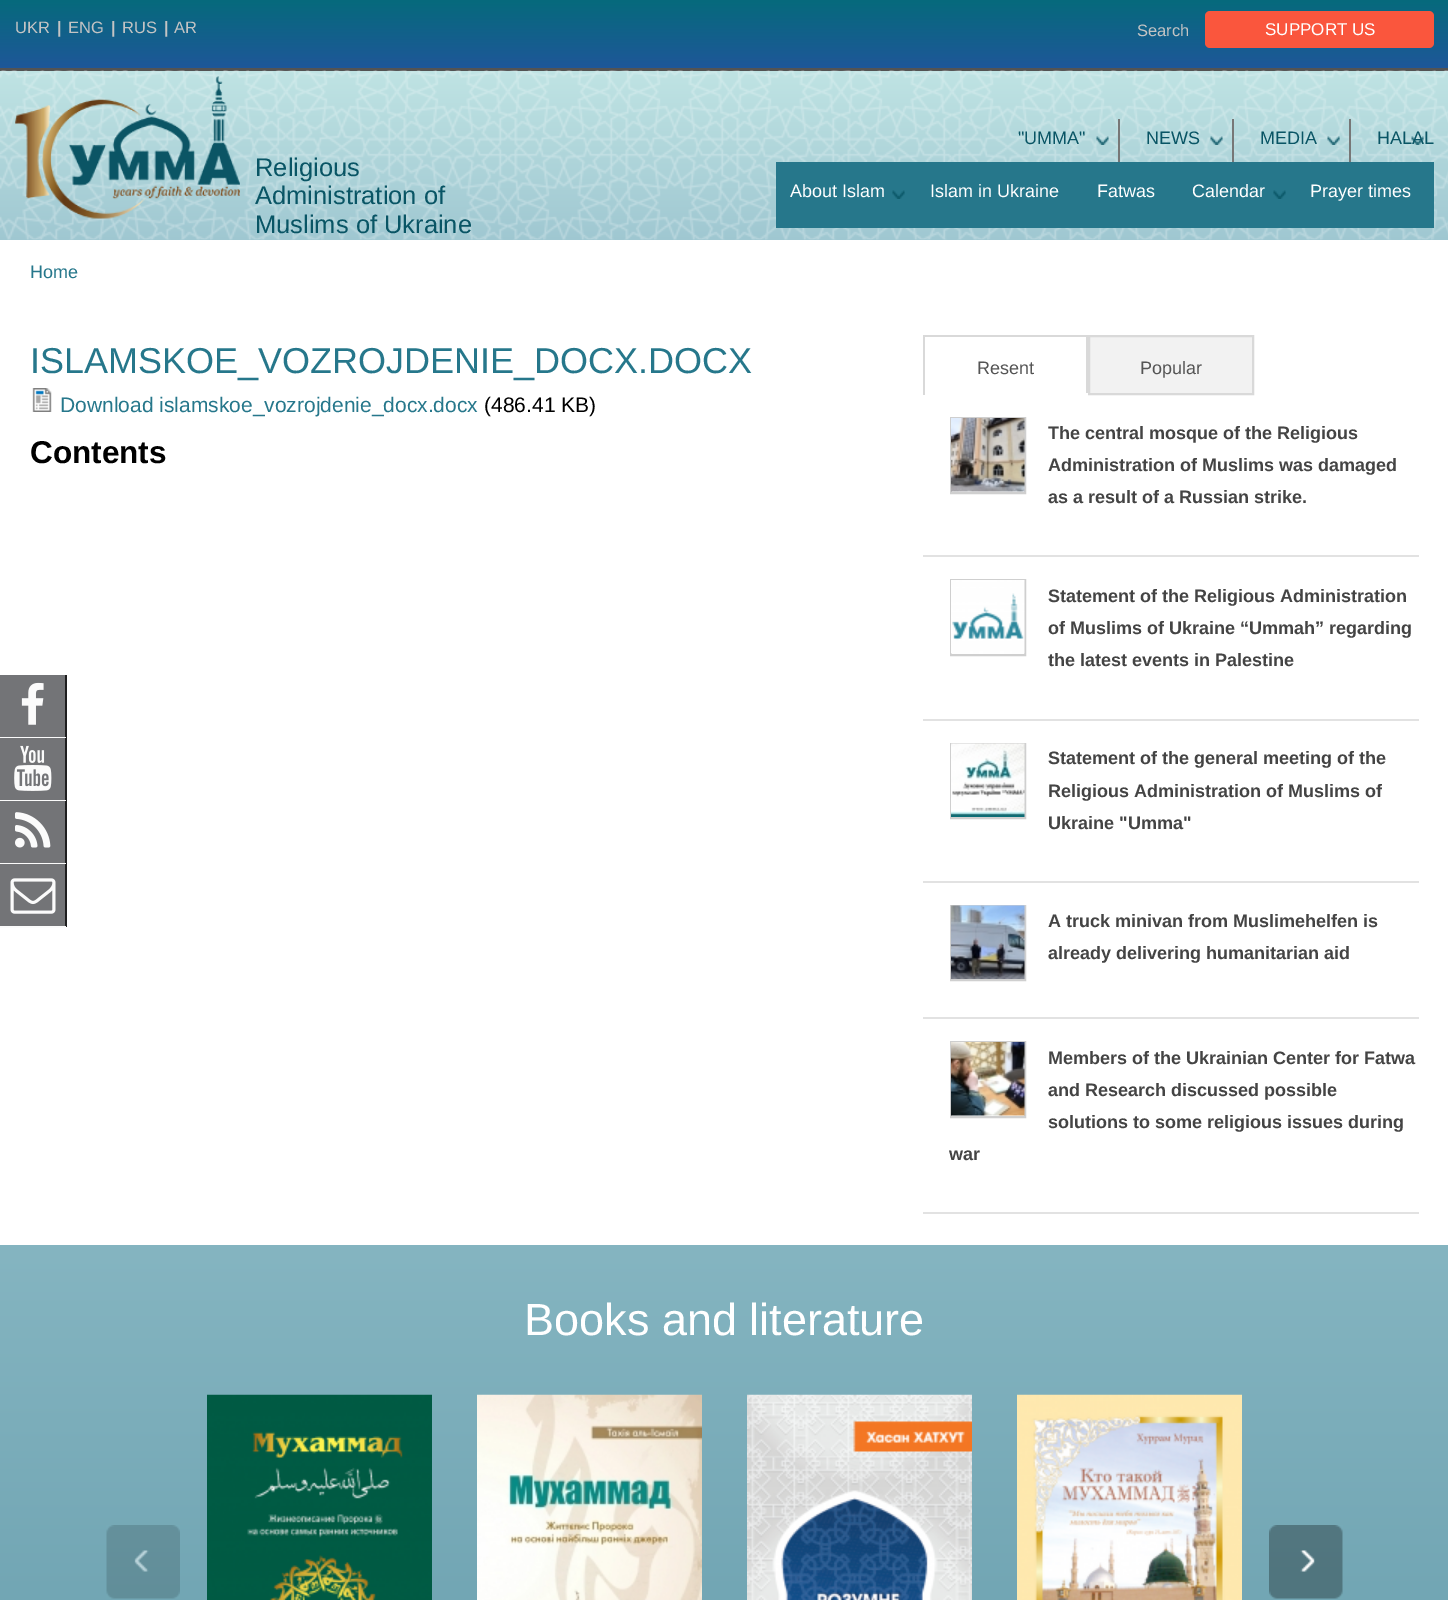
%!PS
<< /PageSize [1448 1600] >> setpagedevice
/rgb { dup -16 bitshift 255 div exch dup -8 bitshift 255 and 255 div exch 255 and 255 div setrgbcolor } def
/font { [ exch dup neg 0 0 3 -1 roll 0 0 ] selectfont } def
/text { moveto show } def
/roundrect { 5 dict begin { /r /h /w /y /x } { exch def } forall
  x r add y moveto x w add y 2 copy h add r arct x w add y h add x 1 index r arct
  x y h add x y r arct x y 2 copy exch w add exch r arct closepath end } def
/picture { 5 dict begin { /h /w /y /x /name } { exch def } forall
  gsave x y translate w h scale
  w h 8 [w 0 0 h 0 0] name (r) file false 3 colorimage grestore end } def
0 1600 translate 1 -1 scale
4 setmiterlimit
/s1 { /LiberationSans-Regular 16.5 font 16#C4C4C4 rgb } def
/s2 { /LiberationSans-Bold 16.5 font 16#C4C4C4 rgb } def
/s3 { /LiberationSans-Regular 17 font 16#FFFFFF rgb } def
/s4 { /LiberationSans-Regular 25.5 font 16#095565 rgb } def
/s5 { /LiberationSans-Regular 18 font 16#095565 rgb } def
/s6 { /LiberationSans-Regular 18 font 16#FFFFFF rgb } def
/s7 { /LiberationSans-Regular 18 font 16#26778B rgb } def
/s8 { /LiberationSans-Regular 36 font 16#26778B rgb } def
/s9 { /LiberationSans-Regular 21 font 16#26778B rgb } def
/s10 { /LiberationSans-Regular 21 font 16#000000 rgb } def
/s11 { /LiberationSans-Bold 31.5 font 16#000000 rgb } def
/s12 { /LiberationSans-Regular 18 font 16#555555 rgb } def
/s13 { /LiberationSans-Bold 18 font 16#444444 rgb } def
/s14 { /LiberationSans-Regular 45 font 16#FFFFFF rgb } def
16#FFFFFF rgb
0 0 1448 1600 rectfill
gsave 0 0 moveto 1448 0 lineto 1448 68 lineto 0 68 lineto closepath clip newpath
<< /ShadingType 2 /ColorSpace /DeviceRGB /Coords [725 -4.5 725 68] /Extend [true true] /Function << /FunctionType 2 /Domain [0 1] /C0 [0.016 0.42 0.478] /C1 [0.118 0.341 0.6] /N 1 >> >> shfill grestore
16#535353 rgb
0 68 1448 3 rectfill
s1
(UKR) 15 33 text
s2
(|) 57 33 text
s1
(ENG) 68 33 text
s2
(|) 111 33 text
s1
(RUS) 122 33 text
s2
(|) 164 33 text
s1
(AR) 174 33 text
(Search) 1137 36 text
16#FA563D rgb
1205 11 229 37 5 roundrect fill
s3
(SUPPORT) 1265 35 text
(US) 1352 35 text
gsave 0 71 moveto 1448 71 lineto 1448 240 lineto 0 240 lineto closepath clip newpath
<< /ShadingType 2 /ColorSpace /DeviceRGB /Coords [725 70 725 240] /Extend [true true] /Function << /FunctionType 2 /Domain [0 1] /C0 [0.749 0.89 0.89] /C1 [0.624 0.78 0.82] /N 1 >> >> shfill grestore
(pic1.raw) 0 70 1448 170 picture
(pic2.raw) 15 76 225 143 picture
s4
(Religious) 255 176 text
(Administration of) 255 204 text
(Muslims of Ukraine) 255 233 text
(pic3.raw) 1096 136 13 9 picture
16#777777 rgb
1118 119 2 43 rectfill
s5
("UMMA") 1018 144 text
(pic4.raw) 1210 136 13 9 picture
16#777777 rgb
1232 119 2 43 rectfill
s5
(NEWS) 1146 144 text
(pic5.raw) 1327 136 13 9 picture
16#777777 rgb
1349 119 2 43 rectfill
s5
(MEDIA) 1260 144 text
(pic6.raw) 1411 136 13 9 picture
(HALAL) 1377 144 text
16#26778B rgb
776 162 658 66 rectfill
(pic7.raw) 892 190 13 9 picture
s6
(About Islam) 790 197 text
(Islam in Ukraine) 930 197 text
(Fatwas) 1097 197 text
(pic8.raw) 1273 190 13 9 picture
(Calendar) 1192 197 text
(Prayer times) 1310 197 text
s7
(Home) 30 278 text
s8
(ISLAMSKOE_VOZROJDENIE_DOCX.DOCX) 30 373 text
(pic9.raw) 32 388 20 24 picture
s9
(Download islamskoe_vozrojdenie_docx.docx) 60 412 text
s10
(\(486.41 KB\)) 484 412 text
s11
(Contents) 30 463 text
16#D9D9D9 rgb
923 335 165 2 rectfill
1086 335 2 60 rectfill
16#FFFFFF rgb
1086 393 2 2 rectfill
16#D9D9D9 rgb
923 335 2 60 rectfill
s12
(Resent) 977 374 text
16#F2F2F2 rgb
1089 336 moveto 1253 336 lineto 1253 394 lineto 1089 394 lineto closepath gsave fill grestore
16#D9D9D9 rgb
2 setlinewidth
stroke
s12
(Popular) 1140 374 text
16#E2E2E2 rgb
923 555 496 2 rectfill
16#CFCFCF rgb
951 418 74 75 rectstroke
(pic10.raw) 951 418 74 74 picture
s13
(The central mosque of the Religious) 1048 439 text
(Administration of Muslims was damaged) 1048 471 text
(as a result of a Russian strike.) 1048 503 text
16#E2E2E2 rgb
923 719 496 2 rectfill
16#CFCFCF rgb
951 580 74 75 rectstroke
(pic11.raw) 951 580 74 74 picture
s13
(Statement of the Religious Administration) 1048 602 text
(of Muslims of Ukraine “Ummah” regarding) 1048 634 text
(the latest events in Palestine) 1048 666 text
16#E2E2E2 rgb
923 881 496 2 rectfill
16#CFCFCF rgb
951 744 74 74 rectstroke
(pic12.raw) 951 743 74 74 picture
s13
(Statement of the general meeting of the) 1048 764 text
(Religious Administration of Muslims of) 1048 797 text
(Ukraine "Umma") 1048 829 text
16#E2E2E2 rgb
923 1017 496 2 rectfill
16#CFCFCF rgb
951 906 74 74 rectstroke
(pic13.raw) 951 905 74 74 picture
s13
(A truck minivan from Muslimehelfen is) 1048 927 text
(already delivering humanitarian aid) 1048 959 text
16#E2E2E2 rgb
923 1212 496 2 rectfill
16#CFCFCF rgb
951 1042 74 75 rectstroke
(pic14.raw) 951 1042 74 74 picture
s13
(Members of the Ukrainian Center for Fatwa) 1048 1064 text
(and Research discussed possible) 1048 1096 text
(solutions to some religious issues during) 1048 1128 text
(war) 949 1160 text
gsave 0 1245 moveto 1448 1245 lineto 1448 1600 lineto 0 1600 lineto closepath clip newpath
<< /ShadingType 2 /ColorSpace /DeviceRGB /Coords [725 1245 725 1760] /Extend [true true] /Function << /FunctionType 2 /Domain [0 1] /C0 [0.522 0.71 0.757] /C1 [0.412 0.627 0.682] /N 1 >> >> shfill grestore
s14
(Books and literature) 524 1335 text
(pic15.raw) 106 1525 74 74 picture
(pic16.raw) 207 1394 225 206 picture
(pic17.raw) 477 1394 225 206 picture
(pic18.raw) 747 1394 225 206 picture
(pic19.raw) 1017 1394 225 206 picture
(pic20.raw) 1269 1525 74 74 picture
16#737477 rgb
0 675 65 62 rectfill
16#1E1E1F rgb
65 675 2 252 rectfill
16#FBFBFB rgb
0 737 66 1 rectfill
(pic21.raw) 21 682 23 43 picture
16#737477 rgb
0 738 65 62 rectfill
16#FBFBFB rgb
0 800 66 1 rectfill
(pic22.raw) 14 745 38 46 picture
16#737477 rgb
0 801 65 62 rectfill
16#FBFBFB rgb
0 863 66 1 rectfill
(pic23.raw) 15 812 36 36 picture
16#737477 rgb
0 864 65 62 rectfill
16#FBFBFB rgb
0 926 66 2 rectfill
(pic24.raw) 10 878 46 36 picture
showpage
